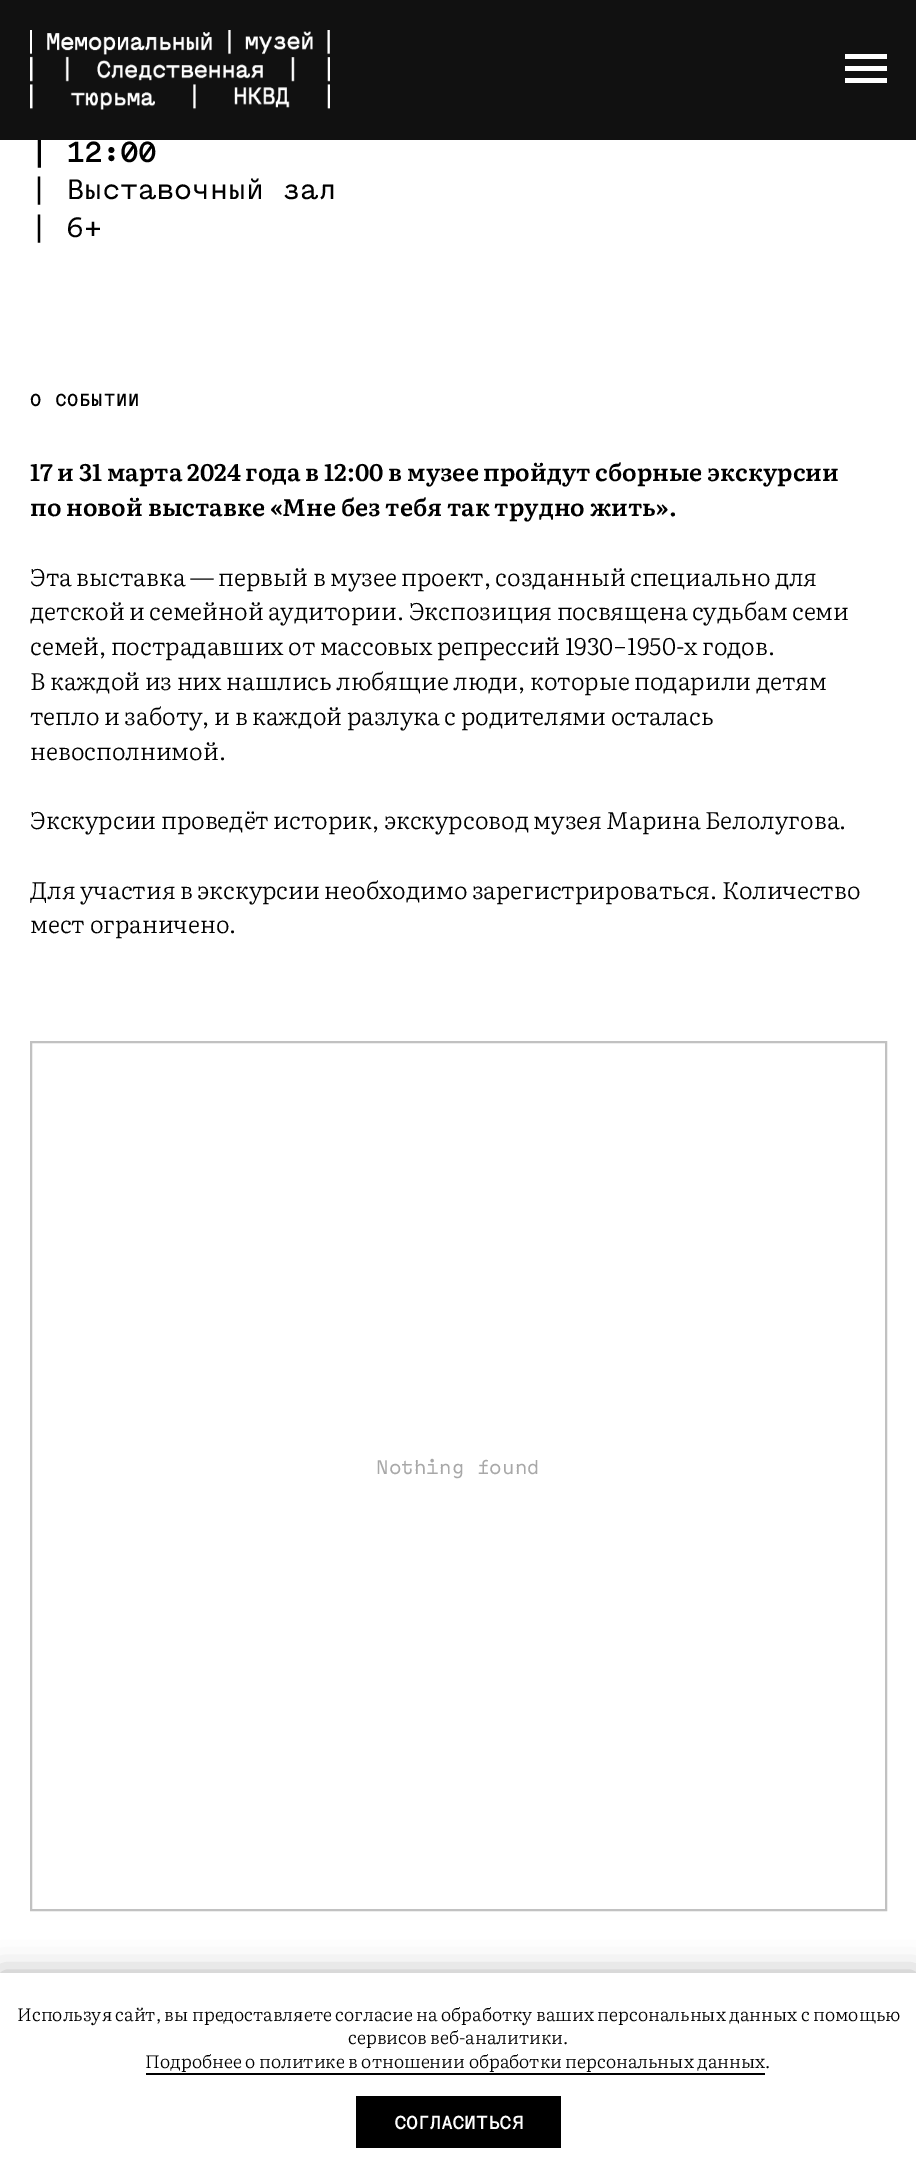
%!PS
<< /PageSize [916 2178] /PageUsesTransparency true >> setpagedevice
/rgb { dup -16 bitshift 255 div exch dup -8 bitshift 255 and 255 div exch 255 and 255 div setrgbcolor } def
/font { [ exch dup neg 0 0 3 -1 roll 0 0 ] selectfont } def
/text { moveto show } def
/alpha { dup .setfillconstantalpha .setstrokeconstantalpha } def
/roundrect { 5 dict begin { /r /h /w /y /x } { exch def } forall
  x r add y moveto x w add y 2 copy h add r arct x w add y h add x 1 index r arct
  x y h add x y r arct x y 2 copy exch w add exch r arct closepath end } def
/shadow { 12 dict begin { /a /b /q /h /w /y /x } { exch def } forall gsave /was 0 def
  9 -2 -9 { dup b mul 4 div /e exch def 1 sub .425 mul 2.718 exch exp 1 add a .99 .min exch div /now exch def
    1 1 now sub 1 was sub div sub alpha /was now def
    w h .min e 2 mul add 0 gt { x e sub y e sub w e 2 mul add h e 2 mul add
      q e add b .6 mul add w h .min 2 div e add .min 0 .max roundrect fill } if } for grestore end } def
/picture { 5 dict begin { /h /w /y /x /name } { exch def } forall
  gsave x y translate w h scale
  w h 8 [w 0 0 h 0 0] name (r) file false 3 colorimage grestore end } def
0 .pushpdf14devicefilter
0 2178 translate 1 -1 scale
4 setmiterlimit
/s1 { /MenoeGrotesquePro-Bold 30 font 16#000000 rgb } def
/s2 { /MenoeGrotesquePro-Regular 30 font 16#000000 rgb } def
/s3 { /Literata-SemiBold 24 font 16#000000 rgb } def
/s4 { /Literata-Light 24 font 16#000000 rgb } def
/s5 { /MenoeGrotesquePro-Regular 21 font 16#A8A8A8 rgb } def
/s6 { /Literata-Light 18 font 16#000000 rgb } def
/s7 { /MenoeGrotesquePro-Bold 19.5 font 16#FFFFFF rgb } def
16#FFFFFF rgb
0 0 916 2178 rectfill
s1
(| 12:00) 30 162 text
16#111111 rgb
0 0 916 140 rectfill
(pic1.raw) 30 30 300 80 picture
16#FFFFFF rgb
845 54 42 5 rectfill
845 66 42 5 rectfill
845 78 42 5 rectfill
s2
(| Выставочный зал) 30 199 text
(| 6+) 30 237 text
/MenoeGrotesquePro-Bold 18 font
30 406 moveto 1.5 0 (О СОБЫТИИ) ashow
s3
(17 и 31 марта 2024 года в 12:00 в музее пройдут сборные экскурсии) 30 481 text
(по новой выставке «Мне без тебя так трудно жить».) 30 516 text
/Literata-Light 24 font
30 586 moveto -0.25 0 32 (Эта выставка — первый в музее проект, созданный специально для) widthshow
30 620 moveto -0.25 0 32 (детской и семейной аудитории. Экспозиция посвящена судьбам семи) widthshow
30 655 moveto -0.25 0 32 (семей, пострадавших от массовых репрессий 1930−1950-х годов.) widthshow
30 690 moveto -0.1 0 32 (В каждой из них нашлись любящие люди, которые подарили детям) widthshow
30 725 moveto -0.1 0 32 (тепло и заботу, и в каждой разлука с родителями осталась) widthshow
(невосполнимой.) 30 760 text
30 829 moveto -0.25 0 32 (Экскурсии проведёт историк, экскурсовод музея Марина Белолугова.) widthshow
30 899 moveto -0.25 0 32 (Для участия в экскурсии необходимо зарегистрироваться. Количество) widthshow
(мест ограничено.) 30 933 text
16#C1C1C1 rgb
2 setlinewidth
31 1042 855 868 rectstroke
s5
(Nothing found) 376 1474 text
16#000000 rgb
0 1973 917 205 0 15 0.3 shadow
16#FFFFFF rgb
0 1973 916 205 rectfill
s6
(Используя сайт, вы предоставляете согласие на обработку ваших персональных данных с помощью) 17 2021 text
(сервисов веб-аналитики.) 348 2044 text
(Подробнее о политике в отношении обработки персональных данных.) 145 2068 text
146 2073 619 2 rectfill
356 2096 205 52 rectfill
s7
(СОГЛАСИТЬСЯ) 394 2129 text
.poppdf14devicefilter showpage
